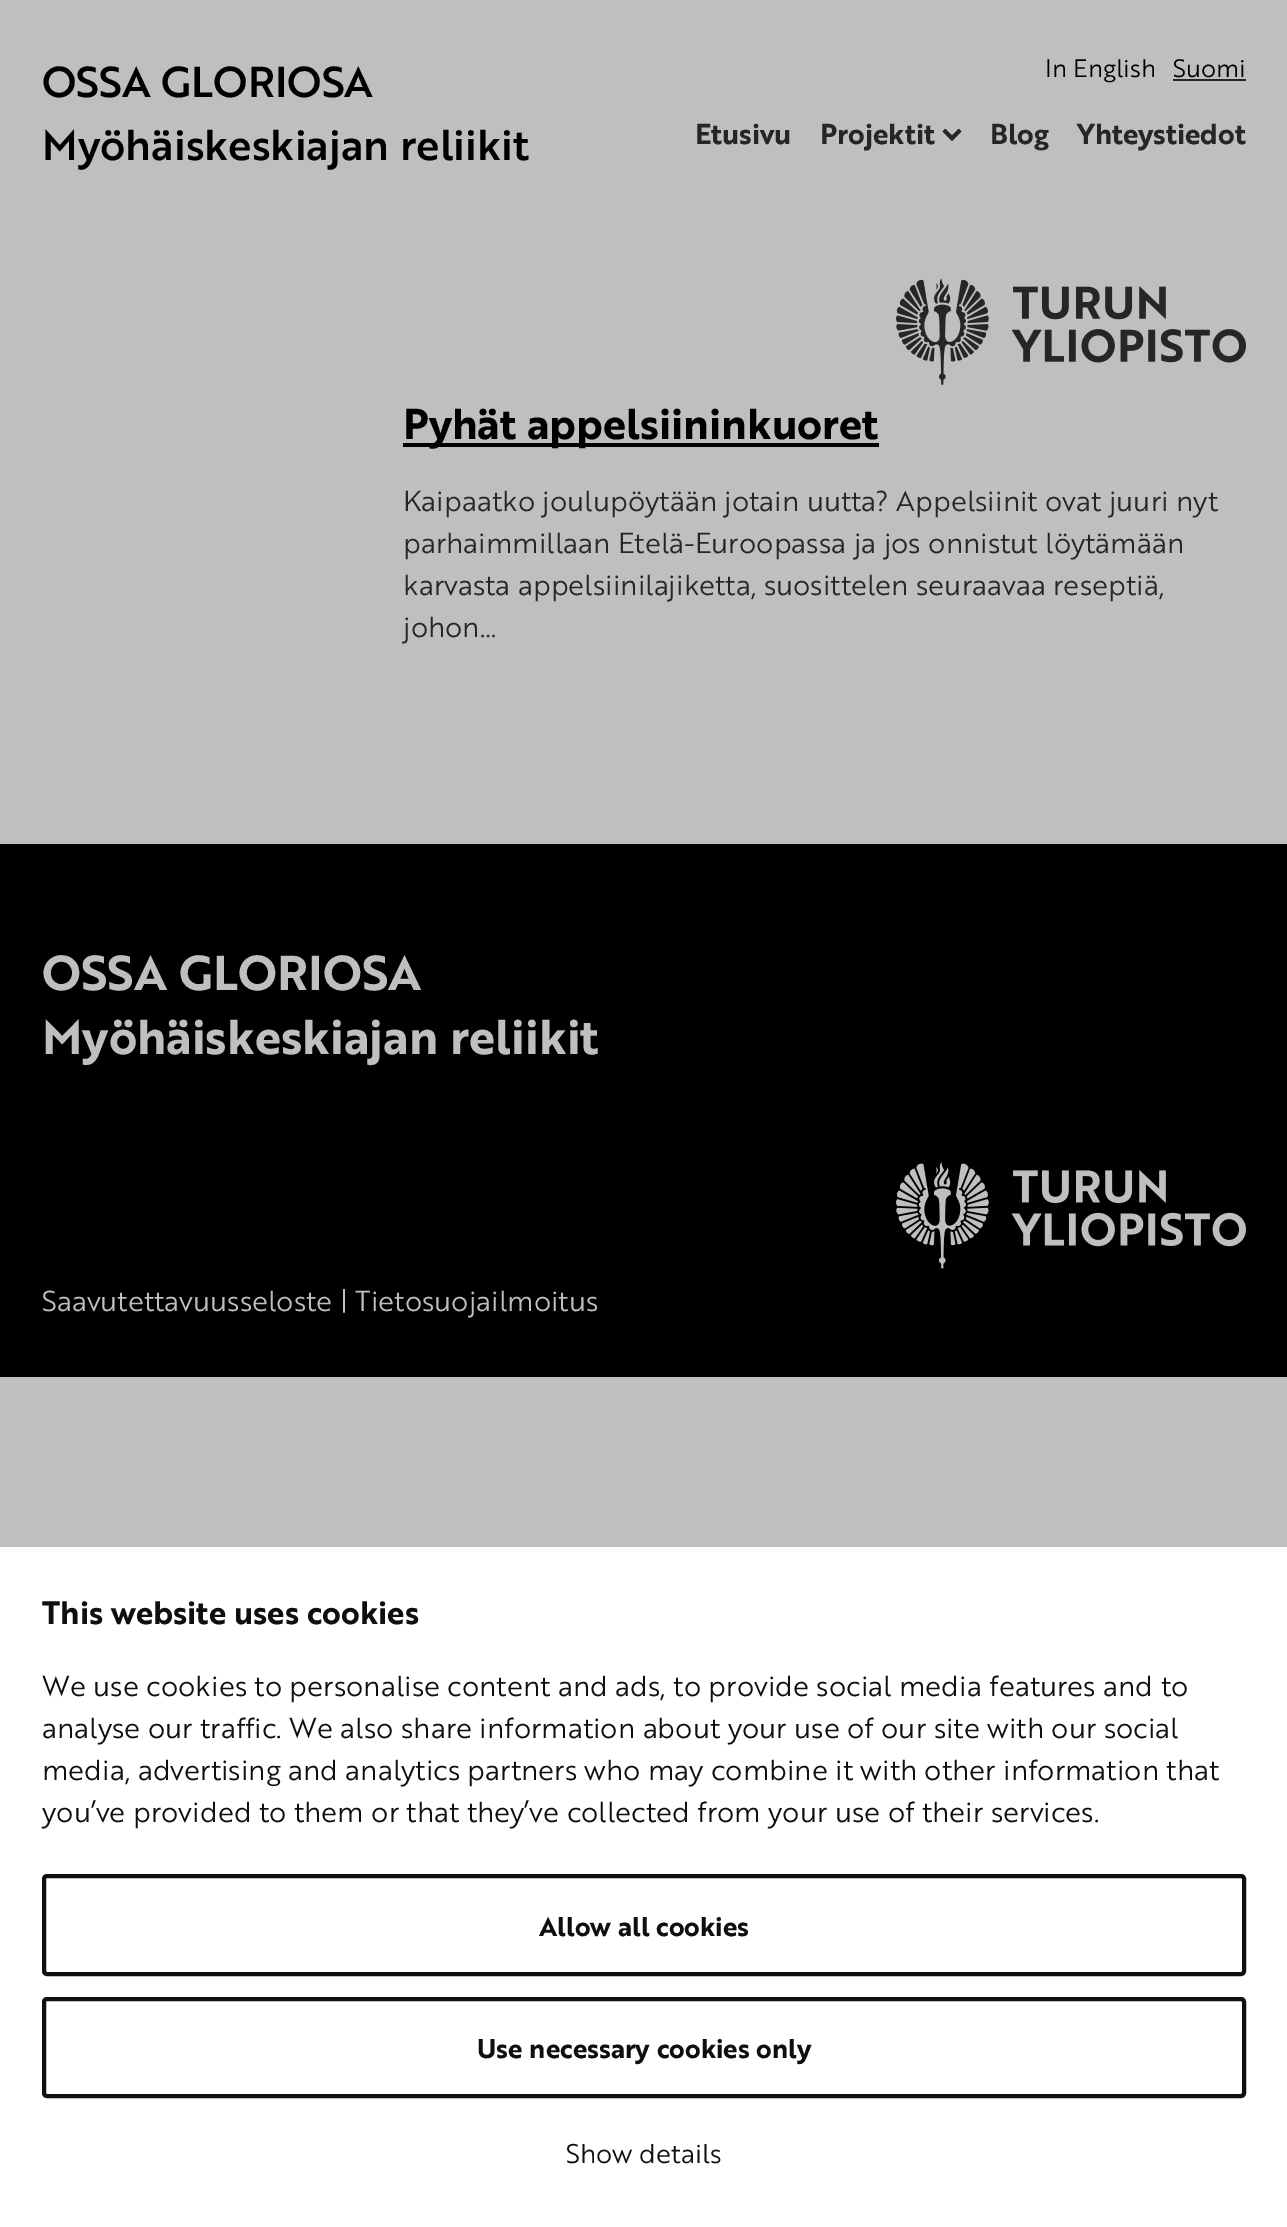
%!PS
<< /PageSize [1287 2227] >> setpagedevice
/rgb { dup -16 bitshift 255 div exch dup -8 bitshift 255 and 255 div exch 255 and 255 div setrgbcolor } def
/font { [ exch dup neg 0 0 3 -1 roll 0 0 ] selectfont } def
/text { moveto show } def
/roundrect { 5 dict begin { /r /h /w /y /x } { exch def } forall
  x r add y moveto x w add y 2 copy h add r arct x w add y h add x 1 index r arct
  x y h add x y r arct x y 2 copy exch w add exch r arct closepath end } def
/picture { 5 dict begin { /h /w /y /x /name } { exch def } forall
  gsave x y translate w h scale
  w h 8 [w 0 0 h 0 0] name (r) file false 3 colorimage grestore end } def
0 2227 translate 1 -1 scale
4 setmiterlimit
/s1 { /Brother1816-Medium 42 font 16#000000 rgb } def
/s2 { /Brother1816-Regular 24.5 font 16#000000 rgb } def
/s3 { /Brother1816-Bold 28 font 16#262626 rgb } def
/s4 { /Brother1816-Bold 42 font 16#000000 rgb } def
/s5 { /Brother1816-Regular 28 font 16#262626 rgb } def
/s6 { /Brother1816-Bold 47.6 font 16#BFBFBF rgb } def
/s7 { /Brother1816-Regular 28 font 16#BFBFBF rgb } def
/s8 { /Brother1816-Bold 31.5 font 16#0F0F0F rgb } def
/s9 { /Brother1816-Regular 28 font 16#0F0F0F rgb } def
/s10 { /Brother1816-Bold 26.25 font 16#0F0F0F rgb } def
/s11 { /Brother1816-Regular 26.25 font 16#0F0F0F rgb } def
16#BFBFBF rgb
0 0 1287 2227 rectfill
s1
(OSSA GLORIOSA) 42 97 text
(Myöhäiskeskiajan reliikit) 42 160 text
s2
(In English) 1045 77 text
(Suomi) 1173 77 text
16#262626 rgb
1173 79 73 2 rectfill
s3
(Etusivu) 695 144 text
(Projektit) 820 144 text
(pic1.raw) 942 128 20 13 picture
(Blog) 990 144 text
(Yhteystiedot) 1077 144 text
(pic2.raw) 896 278 350 107 picture
16#000000 rgb
403 443 476 4 rectfill
s4
(Pyhät appelsiininkuoret) 403 439 text
s5
(Kaipaatko joulupöytään jotain uutta? Appelsiinit ovat juuri nyt) 403 511 text
(parhaimmillaan Etelä-Euroopassa ja jos onnistut löytämään) 403 553 text
(karvasta appelsiinilajiketta, suosittelen seuraavaa reseptiä,) 403 595 text
(johon…) 403 637 text
16#000000 rgb
0 844 1287 533 rectfill
s6
(OSSA GLORIOSA) 42 990 text
(Myöhäiskeskiajan reliikit) 42 1054 text
(pic3.raw) 896 1162 350 107 picture
s7
(Saavutettavuusseloste | Tietosuojailmoitus) 42 1311 text
16#FFFFFF rgb
0 1547 1287 680 rectfill
s8
(This website uses cookies) 42 1624 text
s9
(We use cookies to personalise content and ads, to provide social media features and to) 42 1696 text
(analyse our traffic. We also share information about your use of our site with our social) 42 1738 text
(media, advertising and analytics partners who may combine it with other information that) 42 1780 text
(you’ve provided to them or that they’ve collected from your use of their services.) 42 1822 text
4 setlinewidth
44 1876 1200 98 3 roundrect stroke
s10
(Allow all cookies) 539 1936 text
44 1999 1200 97 3 roundrect stroke
(Use necessary cookies only) 477 2058 text
s11
(Show details) 566 2163 text
showpage
